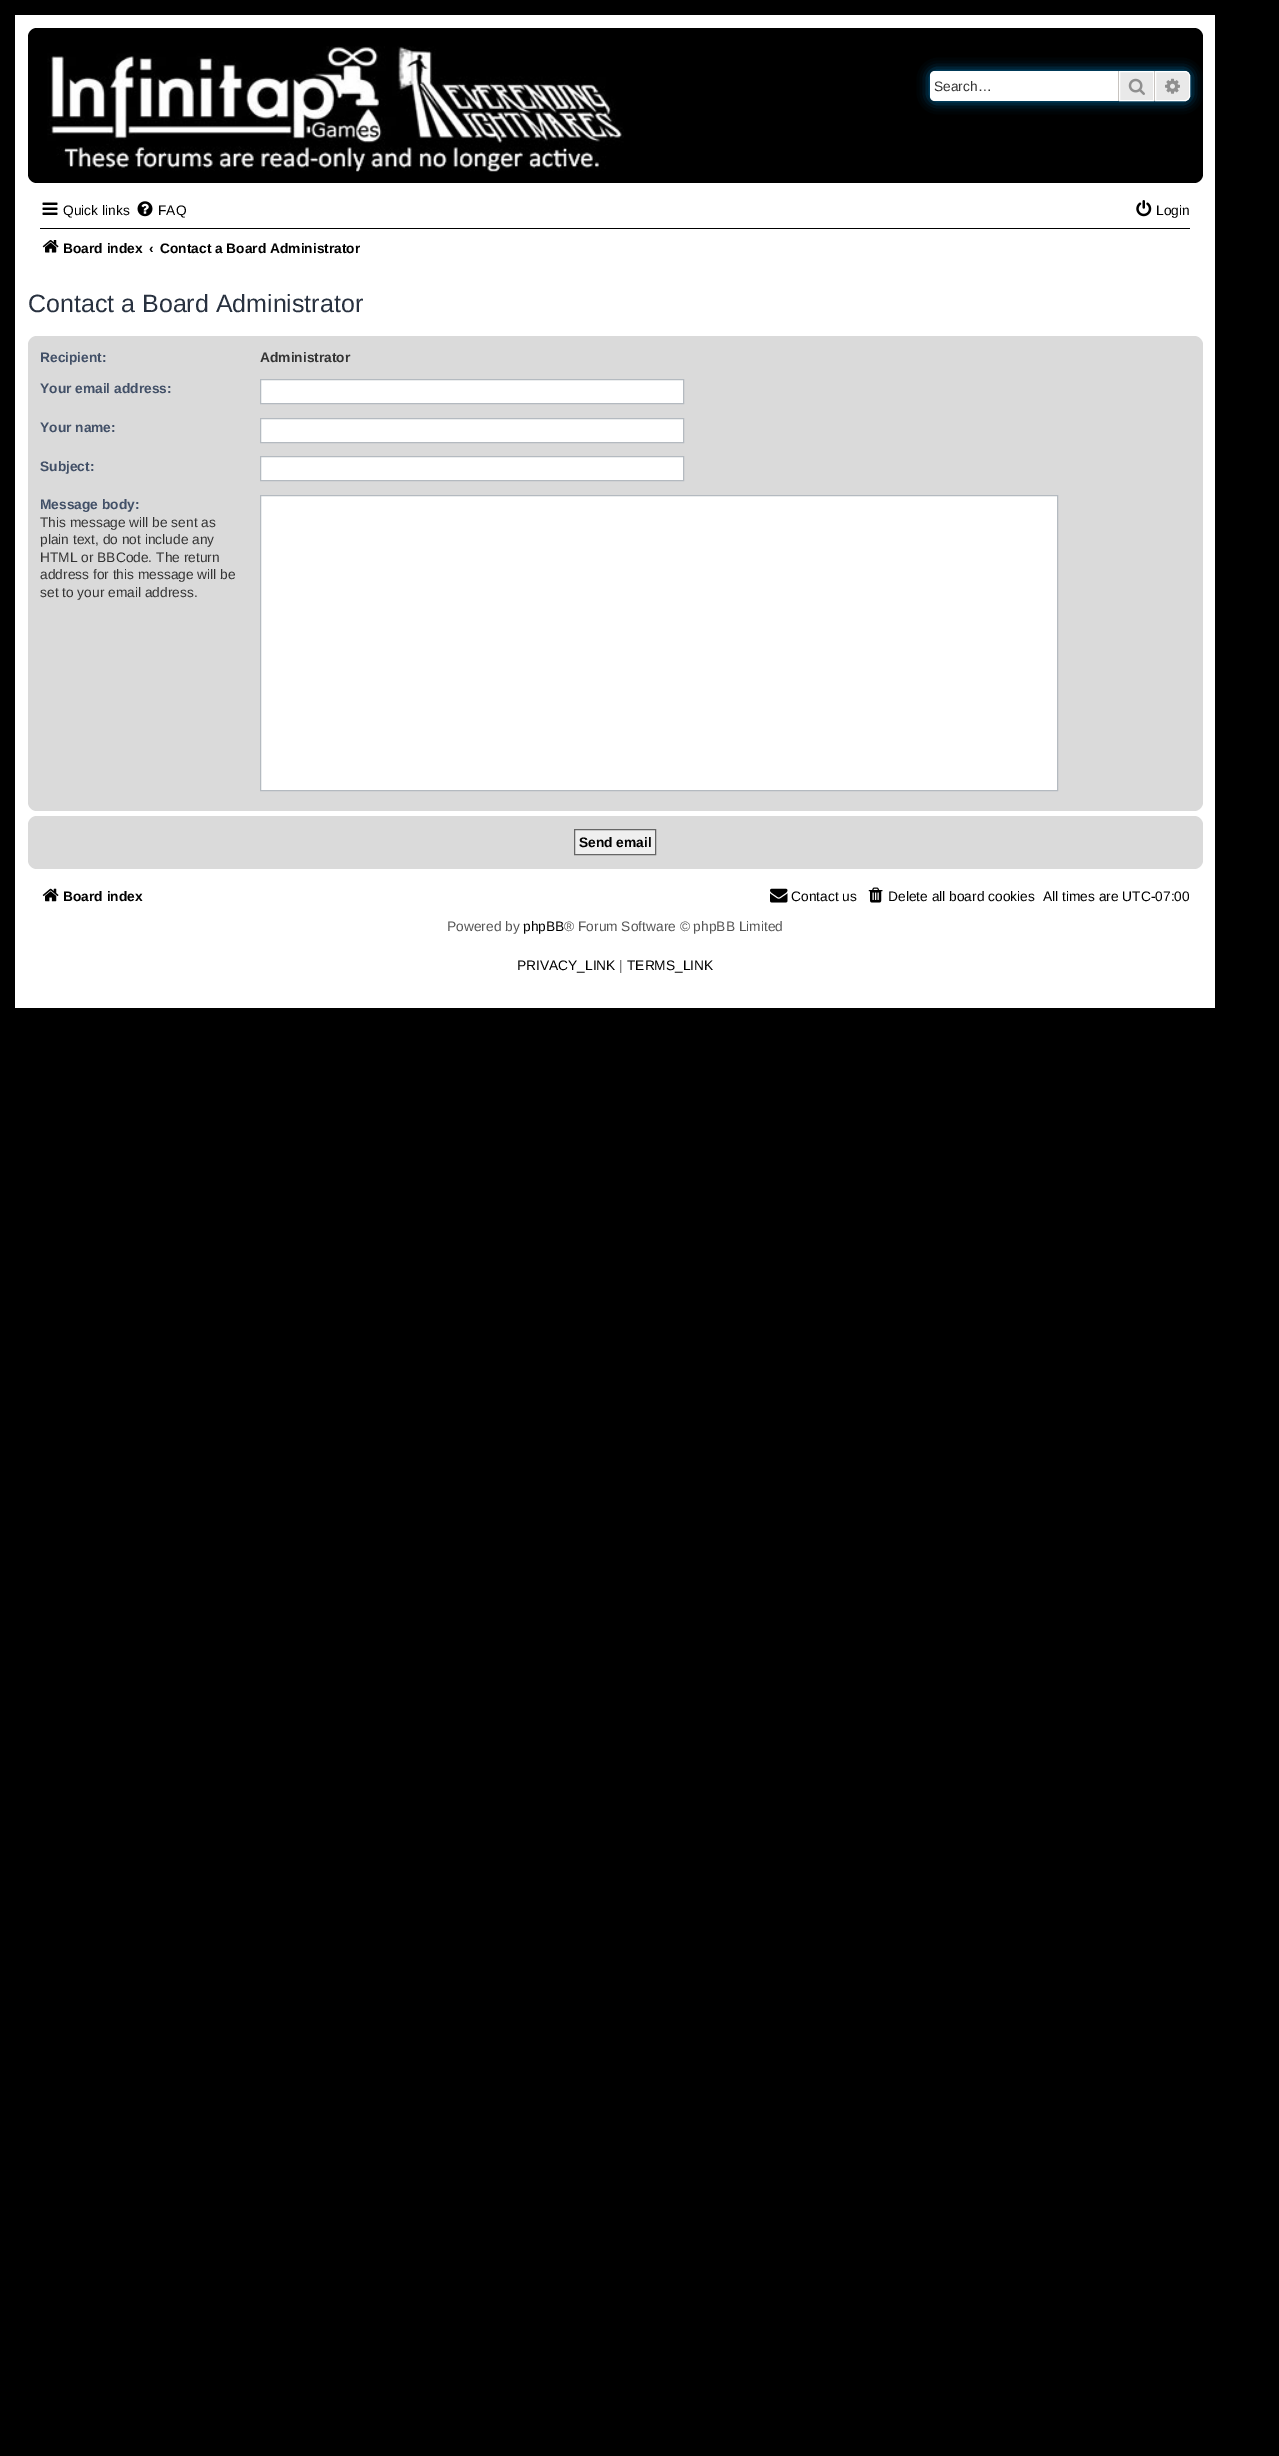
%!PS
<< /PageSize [1279 2456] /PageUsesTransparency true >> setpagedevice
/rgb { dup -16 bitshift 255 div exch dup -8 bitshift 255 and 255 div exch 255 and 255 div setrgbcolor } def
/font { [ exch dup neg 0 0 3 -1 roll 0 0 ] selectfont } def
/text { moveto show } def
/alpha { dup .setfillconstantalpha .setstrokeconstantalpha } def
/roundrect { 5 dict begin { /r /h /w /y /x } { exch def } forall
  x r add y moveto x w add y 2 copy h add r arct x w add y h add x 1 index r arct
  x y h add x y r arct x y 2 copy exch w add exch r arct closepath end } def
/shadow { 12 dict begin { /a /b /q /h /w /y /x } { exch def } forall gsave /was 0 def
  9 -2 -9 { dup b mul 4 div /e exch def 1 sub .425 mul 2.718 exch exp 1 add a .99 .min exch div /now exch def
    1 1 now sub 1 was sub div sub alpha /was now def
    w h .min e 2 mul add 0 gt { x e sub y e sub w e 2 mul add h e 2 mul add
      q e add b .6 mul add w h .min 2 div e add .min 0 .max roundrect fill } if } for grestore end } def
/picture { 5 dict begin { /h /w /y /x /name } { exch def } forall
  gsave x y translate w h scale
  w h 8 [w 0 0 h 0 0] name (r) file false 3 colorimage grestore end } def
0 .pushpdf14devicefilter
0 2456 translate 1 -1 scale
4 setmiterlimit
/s1 { /LiberationSans-Regular 13.75 font 16#333333 rgb } def
/s2 { /LiberationSans-Regular 13.75 font 16#000000 rgb } def
/s3 { /LiberationSans-Bold 13.75 font 16#000000 rgb } def
/s4 { /LiberationSans-Regular 25 font 16#28313F rgb } def
/s5 { /LiberationSans-Bold 13.75 font 16#425067 rgb } def
/s6 { /LiberationSans-Bold 13.75 font 16#333333 rgb } def
/s7 { /LiberationSans-Regular 13.75 font 16#555555 rgb } def
16#000000 rgb
0 0 1279 2456 rectfill
16#FFFFFF rgb
15 15 1200 993 rectfill
16#000000 rgb
28 28 1175 155 9 roundrect fill
(pic1.raw) 47 46 577 126 picture
16#0075B0 rgb
930 71 260 30 5 6 1 shadow
16#FFFFFF rgb
935 71 moveto 1118 71 lineto 1118 101 lineto 935 101 lineto 932 101 930 99 930 96 curveto 930 76 lineto 930 73 932 71 935 71 curveto closepath fill
s1
(Search…) 934 91 text
16#E9E9E9 rgb
1119.5 71.5 moveto 1153.5 71.5 lineto 1153.5 100.5 lineto 1119.5 100.5 lineto closepath gsave fill grestore
16#FFFFFF rgb
stroke
16#C7C3BF rgb
1154 71 1 30 rectfill
1118 71 1 30 rectfill
(pic2.raw) 1128 78 17 17 picture
16#E9E9E9 rgb
1155.5 71.5 moveto 1185 71.5 lineto 1187.5 71.5 1189.5 73.5 1189.5 76 curveto 1189.5 96 lineto 1189.5 98.5 1187.5 100.5 1185 100.5 curveto 1155.5 100.5 lineto closepath gsave fill grestore
16#FFFFFF rgb
stroke
(pic3.raw) 1165 78 15 16 picture
(pic4.raw) 42 202 16 13 picture
s2
(Quick links) 63 215 text
(pic5.raw) 137 201 16 16 picture
(FAQ) 158 215 text
(pic6.raw) 1136 200 16 17 picture
(Login) 1156 215 text
40 228 1150 1 rectfill
(pic7.raw) 42 240 17 13 picture
s3
(Board index) 63 253 text
(‹) 149 253 text
gsave
160 233 200 30 rectclip
(Contact a Board Administrator) 160 253 text
grestore
s4
(Contact a Board Administrator) 28 312 text
16#DADADA rgb
28 336 1175 475 9 roundrect fill
s5
(Recipient:) 40 362 text
s6
(Administrator) 260 362 text
s5
(Your email address:) 40 393 text
16#FFFFFF rgb
260.5 379.5 moveto 683.5 379.5 lineto 683.5 403.5 lineto 260.5 403.5 lineto closepath gsave fill grestore
16#B4BAC0 rgb
stroke
s5
(Your name:) 40 432 text
16#FFFFFF rgb
260.5 418.5 moveto 683.5 418.5 lineto 683.5 442.5 lineto 260.5 442.5 lineto closepath gsave fill grestore
16#B4BAC0 rgb
stroke
s5
(Subject:) 40 471 text
16#FFFFFF rgb
260.5 456.5 moveto 683.5 456.5 lineto 683.5 480.5 lineto 260.5 480.5 lineto closepath gsave fill grestore
16#B4BAC0 rgb
stroke
s5
(Message body:) 40 509 text
s1
(This message will be sent as) 40 527 text
(plain text, do not include any) 40 544 text
(HTML or BBCode. The return) 40 562 text
(address for this message will be) 40 579 text
(set to your email address.) 40 597 text
16#FFFFFF rgb
260.5 495.5 moveto 1057.5 495.5 lineto 1057.5 790.5 lineto 260.5 790.5 lineto closepath gsave fill grestore
16#B4BAC0 rgb
stroke
16#DADADA rgb
28 816 1175 53 9 roundrect fill
16#EFEFEF rgb
574.5 829.5 moveto 655.5 829.5 lineto 655.5 854.5 lineto 574.5 854.5 lineto closepath gsave fill grestore
16#666666 rgb
stroke
s3
(Send email) 579 847 text
(pic8.raw) 42 888 17 14 picture
(Board index) 63 901 text
(pic9.raw) 770 888 18 15 picture
s2
(Contact us) 791 901 text
(pic10.raw) 868 887 15 16 picture
(Delete all board cookies) 888 901 text
(All times are UTC-07:00) 1043 901 text
s7
(Powered by) 447 931 text
s2
(phpBB) 523 931 text
s7
(® Forum Software © phpBB Limited) 564 931 text
s2
(PRIVACY_LINK) 517 970 text
s7
(|) 619 970 text
s2
(TERMS_LINK) 627 970 text
.poppdf14devicefilter showpage
